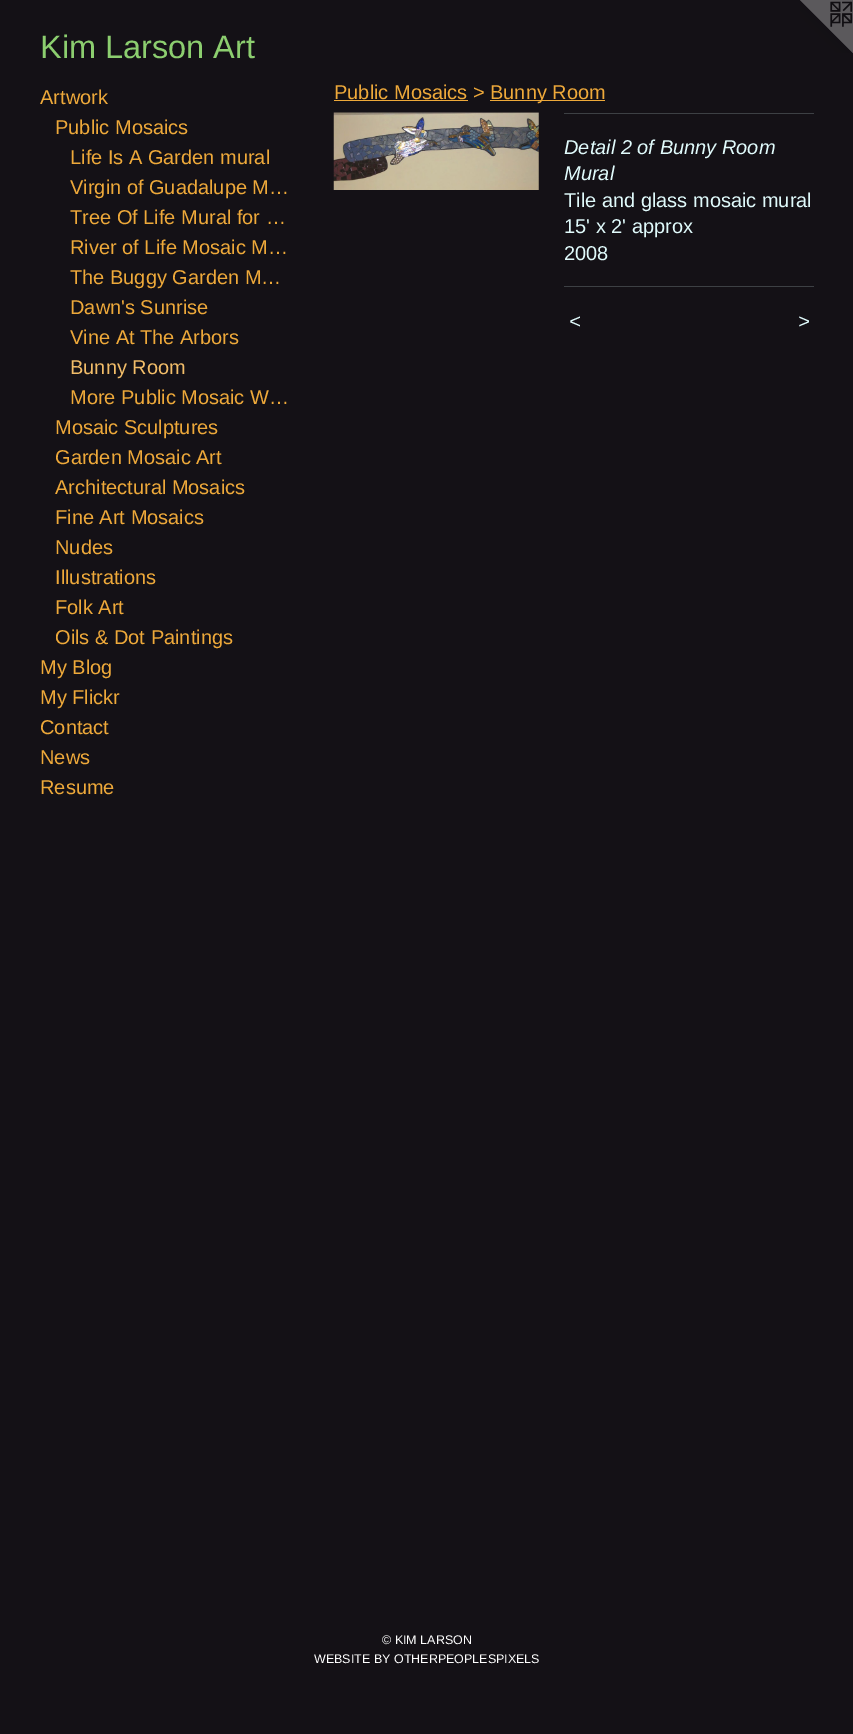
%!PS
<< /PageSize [853 1734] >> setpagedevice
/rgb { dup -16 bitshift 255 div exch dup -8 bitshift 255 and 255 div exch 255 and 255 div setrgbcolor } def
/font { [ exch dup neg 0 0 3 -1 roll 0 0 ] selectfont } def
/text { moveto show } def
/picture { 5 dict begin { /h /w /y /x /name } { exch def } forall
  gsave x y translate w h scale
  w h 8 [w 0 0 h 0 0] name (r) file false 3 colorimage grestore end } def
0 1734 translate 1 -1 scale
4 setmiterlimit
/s1 { /LiberationSans-Regular 32.5 font 16#8CCE6F rgb } def
/s2 { /LiberationSans-Regular 20 font 16#EEA93A rgb } def
/s3 { /LiberationSans-Regular 20 font 16#F2BD69 rgb } def
/s4 { /LiberationSans-Italic 20 font 16#E0FAFB rgb } def
/s5 { /LiberationSans-Regular 20 font 16#E0FAFB rgb } def
/s6 { /LiberationSans-Regular 12.5 font 16#FFFFFF rgb } def
16#141116 rgb
0 0 853 1734 rectfill
s1
(Kim Larson Art) 40 58 text
(pic1.raw) 800 0 53 53 picture
s2
(Artwork) 40 104 text
(Public Mosaics) 55 134 text
(Life Is A Garden mural) 70 164 text
(Virgin of Guadalupe M…) 70 194 text
(Tree Of Life Mural for …) 70 224 text
(River of Life Mosaic M…) 70 254 text
(The Buggy Garden M…) 70 284 text
(Dawn's Sunrise) 70 314 text
(Vine At The Arbors) 70 344 text
s3
(Bunny Room) 70 374 text
s2
(More Public Mosaic W…) 70 404 text
(Mosaic Sculptures) 55 434 text
(Garden Mosaic Art) 55 464 text
(Architectural Mosaics) 55 494 text
(Fine Art Mosaics) 55 524 text
(Nudes) 55 554 text
(Illustrations) 55 584 text
(Folk Art) 55 614 text
(Oils & Dot Paintings) 55 644 text
(My Blog) 40 674 text
(My Flickr) 40 704 text
(Contact) 40 734 text
(News) 40 764 text
(Resume) 40 794 text
(Public Mosaics >) 334 99 text
334 100 134 1 rectfill
490 100 115 1 rectfill
(Bunny Room) 490 99 text
(pic2.raw) 333 112 206 78 picture
16#3D4044 rgb
564 113 250 1 rectfill
s4
(Detail 2 of Bunny Room) 564 154 text
(Mural) 564 180 text
s5
(Tile and glass mosaic mural) 564 207 text
(15' x 2' approx) 564 233 text
(2008) 564 260 text
16#3D4044 rgb
564 286 250 1 rectfill
/LiberationSans-Italic 20 font
16#E0FAFB rgb
569 328 moveto 1 0 (<) ashow
798 328 moveto 1 0 (>) ashow
s6
(© KIM LARSON) 382 1644 text
(WEBSITE BY OTHERPEOPLESPIXELS) 314 1663 text
showpage
